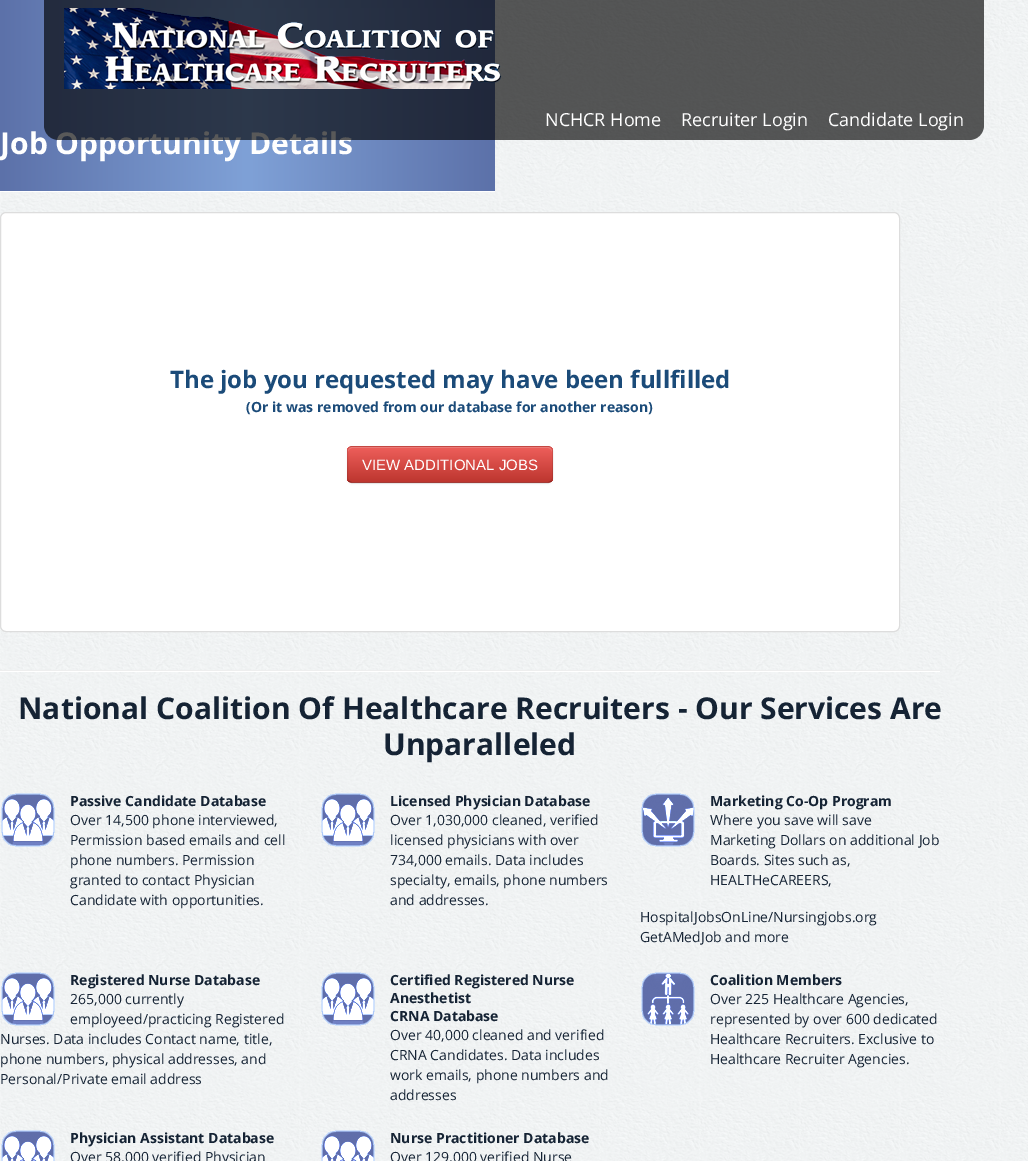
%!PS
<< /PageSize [1028 1161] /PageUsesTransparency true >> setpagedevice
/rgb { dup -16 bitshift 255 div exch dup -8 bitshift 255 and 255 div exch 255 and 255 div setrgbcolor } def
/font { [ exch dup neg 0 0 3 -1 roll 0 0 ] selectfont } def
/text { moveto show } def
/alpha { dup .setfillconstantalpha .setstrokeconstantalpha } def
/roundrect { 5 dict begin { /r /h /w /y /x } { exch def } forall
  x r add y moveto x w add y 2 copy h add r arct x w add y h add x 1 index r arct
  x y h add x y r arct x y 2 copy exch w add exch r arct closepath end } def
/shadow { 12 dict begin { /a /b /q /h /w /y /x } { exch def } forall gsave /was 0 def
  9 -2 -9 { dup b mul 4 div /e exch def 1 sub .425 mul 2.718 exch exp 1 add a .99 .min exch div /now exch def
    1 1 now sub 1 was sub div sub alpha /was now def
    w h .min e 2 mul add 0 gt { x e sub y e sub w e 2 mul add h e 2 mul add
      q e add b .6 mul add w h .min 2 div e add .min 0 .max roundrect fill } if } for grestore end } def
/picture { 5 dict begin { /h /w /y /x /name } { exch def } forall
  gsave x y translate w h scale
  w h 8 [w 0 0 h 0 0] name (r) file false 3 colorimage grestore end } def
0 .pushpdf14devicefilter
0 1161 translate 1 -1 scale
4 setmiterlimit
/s1 { /OpenSans-Bold 30 font 16#FFFFFF rgb } def
/s2 { /OpenSans-Regular 18 font 16#FFFFFF rgb } def
/s3 { /OpenSans-Bold 24 font 16#1B4B79 rgb } def
/s4 { /OpenSans-Bold 14 font 16#1B4B79 rgb } def
/s5 { /LiberationSans-Regular 15 font 16#FFFFFF rgb } def
/s6 { /OpenSans-Bold 30 font 16#152334 rgb } def
/s7 { /OpenSans-Bold 14 font 16#152334 rgb } def
/s8 { /OpenSans-Regular 14 font 16#152334 rgb } def
16#FFFFFF rgb
0 0 1028 1161 rectfill
(pic1.raw) 0 0 1028 1161 picture
gsave 0 0 moveto 495 0 lineto 495 191 lineto 0 191 lineto closepath clip newpath
<< /ShadingType 2 /ColorSpace /DeviceRGB /Coords [0 191 495 191] /Extend [true true] /Function << /FunctionType 3 /Domain [0 1] /Functions [<< /FunctionType 2 /Domain [0 1] /C0 [0.361 0.443 0.663] /C1 [0.498 0.631 0.843] /N 1 >> << /FunctionType 2 /Domain [0 1] /C0 [0.498 0.631 0.843] /C1 [0.361 0.443 0.663] /N 1 >>] /Bounds [0.5] /Encode [0 1 0 1] >> >> shfill grestore
s1
(Job Opportunity Details) 0 154 text
0.65 alpha
16#000000 rgb
44 0 moveto 984 0 lineto 984 125 lineto 984 133.5 977.5 140 969 140 curveto 59 140 lineto 50.5 140 44 133.5 44 125 curveto closepath fill
1 alpha
(pic2.raw) 64 8 438 81 picture
s2
(NCHCR Home) 545 126 text
(Recruiter Login) 681 126 text
(Candidate Login) 828 126 text
0 191 495 1 rectfill
0.5 212.5 899 419 5.5 roundrect gsave fill grestore
16#DDDDDD rgb
stroke
s3
(The job you requested may have been fullfilled) 170 388 text
s4
(\(Or it was removed from our database for another reason\)) 246 412 text
16#000000 rgb
347 447 206 37 5 1 0.05 shadow
16#DA4F49 rgb
347 446 206 37 5 roundrect fill
gsave
347 446 206 37 5 roundrect clip newpath
gsave 347 447 moveto 553 447 lineto 553 482 lineto 347 482 lineto closepath clip newpath
<< /ShadingType 2 /ColorSpace /DeviceRGB /Coords [450 447 450 482] /Extend [true true] /Function << /FunctionType 2 /Domain [0 1] /C0 [0.933 0.373 0.357] /C1 [0.741 0.212 0.184] /N 1 >> >> shfill grestore
grestore
16#F17E7B rgb
352 448 moveto 548 448 lineto 550 448 552 450 552 452 curveto 552 451 lineto 552 449 550 447 548 447 curveto 352 447 lineto 350 447 348 449 348 451 curveto 348 452 lineto 348 450 350 448 352 448 curveto closepath fill
0.25 alpha
16#000000 rgb
551 481 moveto 550.5 482 549 482.5 548 482.5 curveto 352 482.5 lineto 351 482.5 349.5 482 349 481 curveto stroke
0.1 alpha
349 481 moveto 348 480.5 347.5 479 347.5 478 curveto 347.5 451 lineto 347.5 450 348 448.5 349 448 curveto 349.5 447 351 446.5 352 446.5 curveto 548 446.5 lineto 549 446.5 550.5 447 551 448 curveto 552 448.5 552.5 450 552.5 451 curveto 552.5 478 lineto 552.5 479 552 480.5 551 481 curveto stroke
1 alpha
s5
(VIEW ADDITIONAL JOBS) 362 470 text
16#EEEEEE rgb
0 670 940 1 rectfill
16#FFFFFF rgb
0 671 940 1 rectfill
s6
(National Coalition Of Healthcare Recruiters - Our Services Are) 18 719 text
(Unparalleled) 383 755 text
(pic3.raw) 1 793 54 54 picture
(pic4.raw) 1 793 54 54 picture
s7
(Passive Candidate Database) 70 806 text
s8
(Over 14,500 phone interviewed,) 70 825 text
(Permission based emails and cell) 70 845 text
(phone numbers. Permission) 70 865 text
(granted to contact Physician) 70 885 text
(Candidate with opportunities.) 70 905 text
(pic5.raw) 321 793 54 54 picture
(pic6.raw) 321 793 54 54 picture
s7
(Licensed Physician Database) 390 806 text
s8
(Over 1,030,000 cleaned, verified) 390 825 text
(licensed physicians with over) 390 845 text
(734,000 emails. Data includes) 390 865 text
(specialty, emails, phone numbers) 390 885 text
(and addresses.) 390 905 text
(pic7.raw) 641 793 54 54 picture
(pic8.raw) 641 793 54 54 picture
s7
(Marketing Co-Op Program) 710 806 text
s8
(Where you save will save) 710 825 text
(Marketing Dollars on additional Job) 710 845 text
(Boards. Sites such as,) 710 865 text
(HEALTHeCAREERS,) 710 885 text
(HospitalJobsOnLine/Nursingjobs.org) 640 922 text
(GetAMedJob and more) 640 942 text
(pic9.raw) 1 972 54 54 picture
(pic10.raw) 1 972 54 54 picture
s7
(Registered Nurse Database) 70 985 text
s8
(265,000 currently) 70 1004 text
(employeed/practicing Registered) 70 1024 text
(Nurses. Data includes Contact name, title,) 0 1044 text
(phone numbers, physical addresses, and) 0 1064 text
(Personal/Private email address) 0 1084 text
(pic11.raw) 321 972 54 54 picture
(pic12.raw) 321 972 54 54 picture
s7
(Certified Registered Nurse) 390 985 text
(Anesthetist) 390 1003 text
(CRNA Database) 390 1021 text
s8
(Over 40,000 cleaned and verified) 390 1040 text
(CRNA Candidates. Data includes) 390 1060 text
(work emails, phone numbers and) 390 1080 text
(addresses) 390 1100 text
(pic13.raw) 641 972 54 54 picture
(pic14.raw) 641 972 54 54 picture
s7
(Coalition Members) 710 985 text
s8
(Over 225 Healthcare Agencies,) 710 1004 text
(represented by over 600 dedicated) 710 1024 text
(Healthcare Recruiters. Exclusive to) 710 1044 text
(Healthcare Recruiter Agencies.) 710 1064 text
(pic15.raw) 1 1130 54 31 picture
(pic16.raw) 1 1130 54 31 picture
s7
(Physician Assistant Database) 70 1143 text
s8
(Over 58,000 verified Physician) 70 1162 text
(pic17.raw) 321 1130 54 31 picture
(pic18.raw) 321 1130 54 31 picture
s7
(Nurse Practitioner Database) 390 1143 text
s8
(Over 129,000 verified Nurse) 390 1162 text
.poppdf14devicefilter showpage
